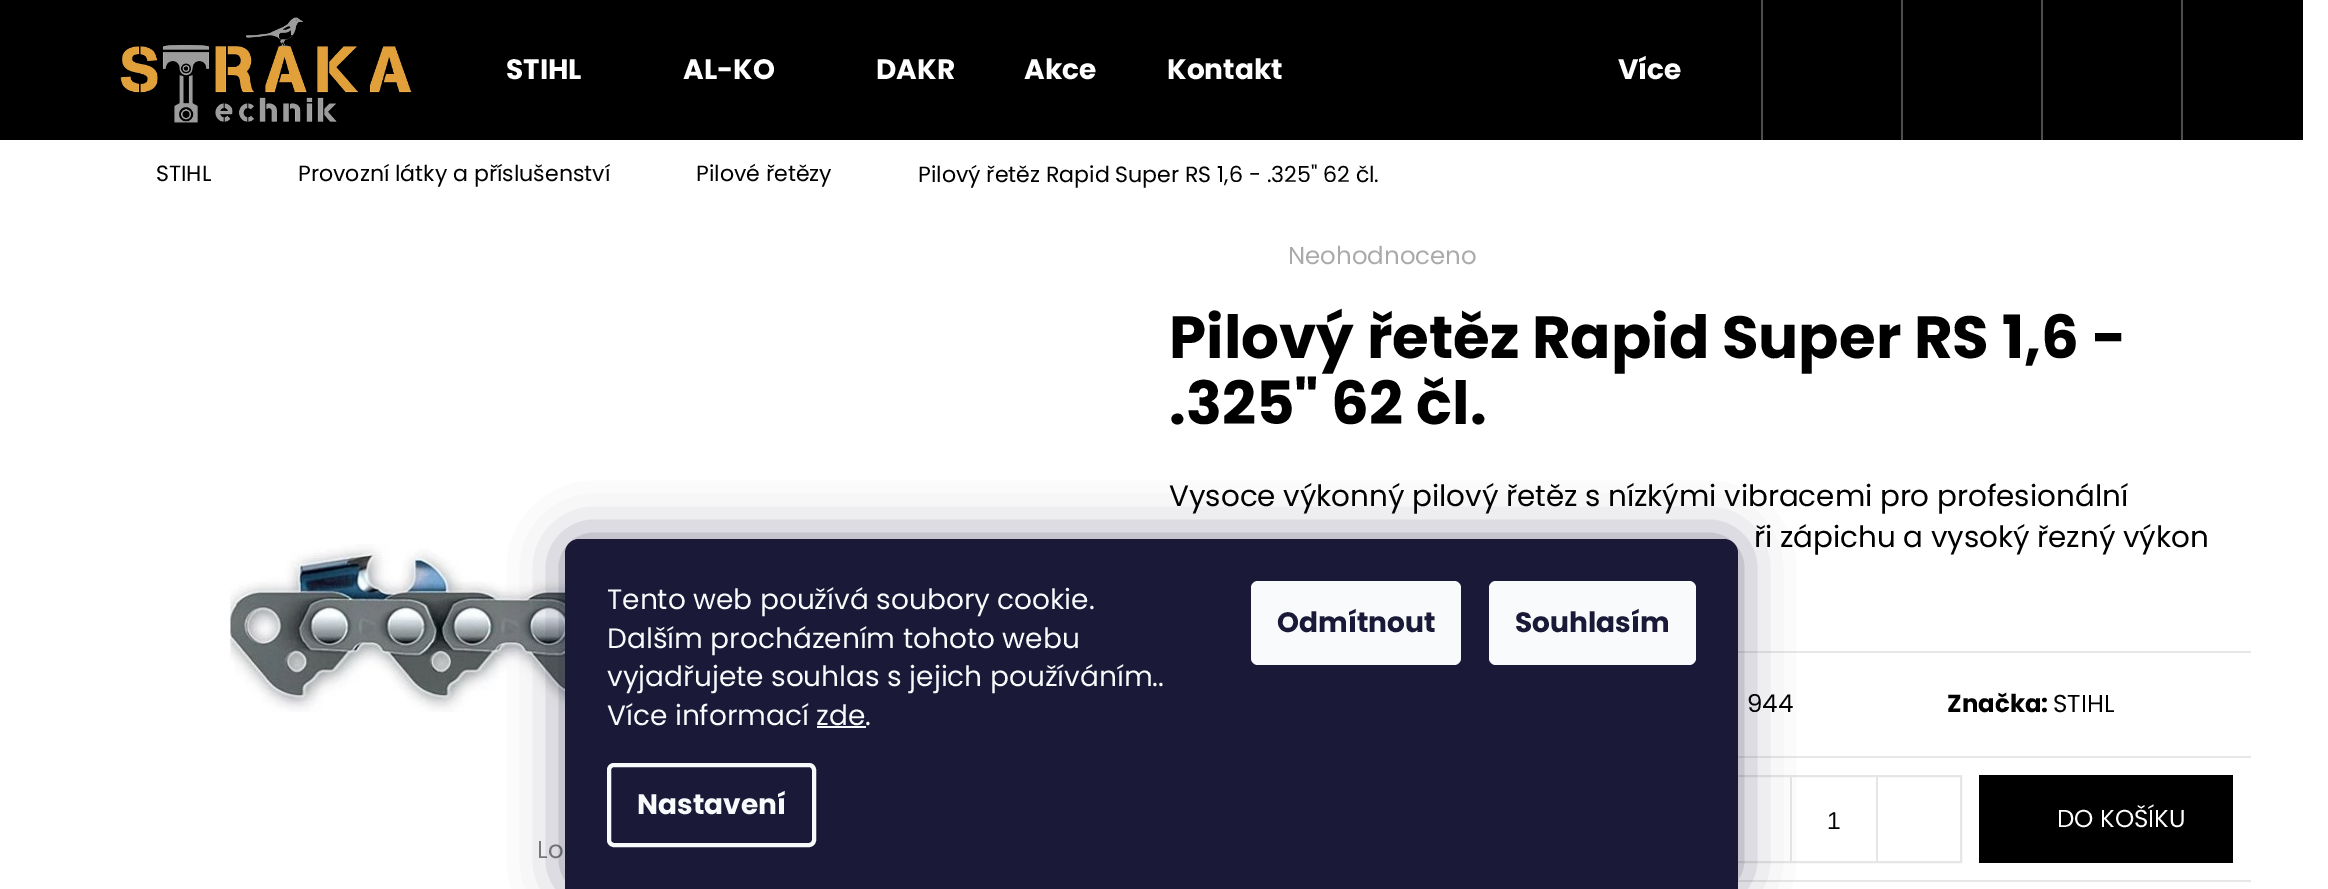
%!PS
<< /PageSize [2328 889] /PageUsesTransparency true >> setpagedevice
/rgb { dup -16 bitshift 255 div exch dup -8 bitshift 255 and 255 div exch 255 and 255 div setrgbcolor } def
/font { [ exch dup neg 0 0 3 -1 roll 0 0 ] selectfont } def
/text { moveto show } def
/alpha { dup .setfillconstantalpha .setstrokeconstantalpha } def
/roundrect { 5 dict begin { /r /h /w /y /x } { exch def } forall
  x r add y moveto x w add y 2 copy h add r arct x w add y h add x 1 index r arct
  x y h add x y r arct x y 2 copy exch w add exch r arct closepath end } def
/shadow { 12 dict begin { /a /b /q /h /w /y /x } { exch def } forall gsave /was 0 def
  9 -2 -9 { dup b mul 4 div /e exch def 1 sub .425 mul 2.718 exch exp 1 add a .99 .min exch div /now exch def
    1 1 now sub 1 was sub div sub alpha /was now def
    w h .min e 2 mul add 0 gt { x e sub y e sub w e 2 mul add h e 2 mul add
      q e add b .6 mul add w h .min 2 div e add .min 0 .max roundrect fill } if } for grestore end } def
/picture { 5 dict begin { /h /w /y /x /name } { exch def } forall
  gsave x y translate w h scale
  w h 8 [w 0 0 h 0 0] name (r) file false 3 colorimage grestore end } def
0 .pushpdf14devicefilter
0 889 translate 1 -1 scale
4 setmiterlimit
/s1 { /Poppins-Bold 28 font 16#FFFFFF rgb } def
/s2 { /Poppins-Regular 22.05 font 16#000000 rgb } def
/s3 { /Poppins-Regular 24.5 font 16#AAAAAA rgb } def
/s4 { /Poppins-Bold 59.5 font 16#000000 rgb } def
/s5 { /Poppins-Regular 24.5 font 16#000000 rgb } def
/s6 { /Poppins-Bold 24.5 font 16#000000 rgb } def
/s7 { /LiberationSans-Regular 24.5 font 16#000000 rgb } def
/s8 { /Poppins-Regular 24.5 font 16#FFFFFF rgb } def
/s9 { /Poppins-Regular 24.5 font 16#808080 rgb } def
/s10 { /Poppins-Regular 28 font 16#F8FAFB rgb } def
/s11 { /Poppins-Bold 28 font 16#F8FAFB rgb } def
/s12 { /Poppins-Bold 28 font 16#1A1937 rgb } def
16#FFFFFF rgb
0 0 2328 889 rectfill
16#000000 rgb
0 0 2303 140 rectfill
(pic1.raw) 120 17 292 106 picture
s1
(STIHL) 506 79 text
(AL-KO) 683 79 text
(DAKR) 876 79 text
(Akce) 1024 79 text
(Kontakt) 1167 79 text
(Více) 1618 79 text
16#4D4D4D rgb
2181 0 2 140 rectfill
1761 0 2 140 rectfill
1901 0 2 140 rectfill
2041 0 2 140 rectfill
s2
(STIHL) 156 181 text
(Provozní látky a příslušenství) 298 181 text
(Pilové řetězy) 696 181 text
(Pilový řetěz Rapid Super RS 1,6 - .325" 62 čl.) 918 182 text
s3
(Neohodnoceno) 1288 264 text
s4
(Pilový řetěz Rapid Super RS 1,6 -) 1169 358 text
(.325" 62 čl.) 1169 424 text
/Poppins-Regular 29.4 font
1169 506 moveto -0.25 0 32 (Vysoce výkonný pilový řetěz s nízkými vibracemi pro profesionální) widthshow
1754 547 moveto -0.25 0 32 (ři zápichu a vysoký řezný výkon) widthshow
16#E7E7E7 rgb
1738 651 513 2 rectfill
1738 756 513 2 rectfill
s5
(944) 1747 712 text
s6
(Značka:) 1947 712 text
s5
(STIHL) 2053 712 text
16#E7E7E7 rgb
1738 880 513 2 rectfill
16#E6E6E6 rgb
2 setlinewidth
1707 776 254 86 rectstroke
1790 777 2 84 rectfill
s7
(1) 1827 829 text
16#E6E6E6 rgb
1876 777 2 84 rectfill
16#000000 rgb
1979 775 254 88 rectfill
s8
(DO KOŠÍKU) 2057 827 text
(pic2.raw) 229 544 340 168 picture
s9
(Lo) 537 858 text
16#1B1939 rgb
565 539 1173 350 14 26 0.5 shadow
16#1A1937 rgb
579 539 moveto 1724 539 lineto 1731.5 539 1738 545.5 1738 553 curveto 1738 889 lineto 565 889 lineto 565 553 lineto 565 545.5 571.5 539 579 539 curveto closepath fill
s10
(Tento web používá soubory cookie.) 607 609 text
(Dalším procházením tohoto webu) 607 648 text
(vyjadřujete souhlas s jejich používáním..) 607 686 text
(Více informací zde.) 607 725 text
817 726 49 2 rectfill
4 setlinewidth
609 765 205 80 5 roundrect stroke
s11
(Nastavení) 637 814 text
1251 581 210 84 7 roundrect fill
s12
(Odmítnout) 1277 632 text
16#F8FAFB rgb
1489 581 207 84 7 roundrect fill
s12
(Souhlasím) 1515 632 text
.poppdf14devicefilter showpage
